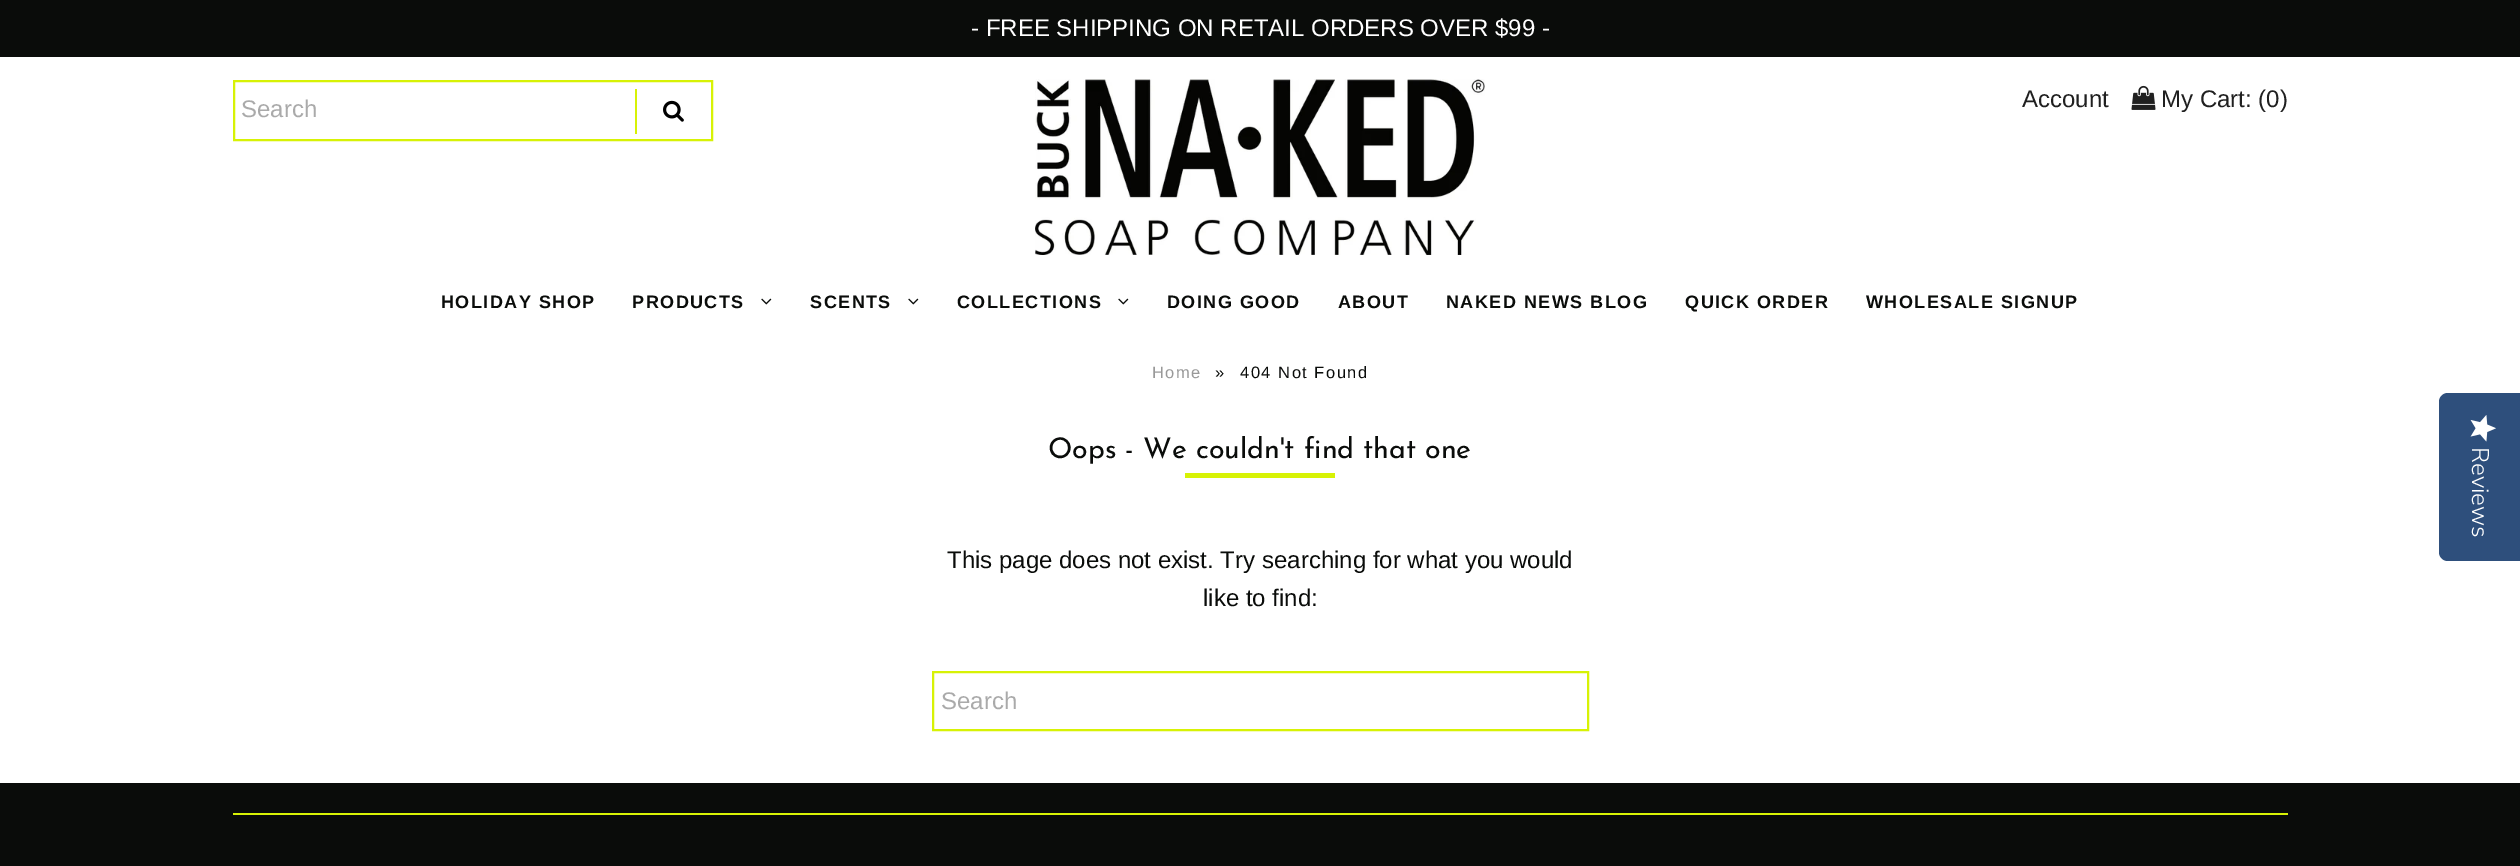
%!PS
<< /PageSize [2520 866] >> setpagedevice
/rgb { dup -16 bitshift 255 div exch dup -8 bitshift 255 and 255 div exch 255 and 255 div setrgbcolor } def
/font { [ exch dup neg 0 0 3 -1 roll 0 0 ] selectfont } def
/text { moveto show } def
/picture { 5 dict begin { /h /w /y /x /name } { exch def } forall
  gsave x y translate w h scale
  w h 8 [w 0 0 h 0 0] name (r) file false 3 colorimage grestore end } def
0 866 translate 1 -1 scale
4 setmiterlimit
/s1 { /LiberationSans-Regular 24 font 16#FFFFFF rgb } def
/s2 { /LiberationSans-Regular 24 font 16#AAAAAA rgb } def
/s3 { /LiberationSans-Regular 24 font 16#202020 rgb } def
/s4 { /JosefinSans-Regular 28.5 font 16#0A0C0A rgb } def
/s5 { /LiberationSans-Regular 24 font 16#0A0C0A rgb } def
16#FFFFFF rgb
0 0 2520 866 rectfill
16#0A0C0A rgb
0 0 2520 57 rectfill
s1
(- FREE SHIPPING ON RETAIL ORDERS OVER $99 -) 971 36 text
16#D7F205 rgb
2 setlinewidth
234 81 478 59 rectstroke
s2
(Search) 241 117 text
16#D7F205 rgb
635 89 2 45 rectfill
(pic1.raw) 663 100 21 22 picture
(pic2.raw) 1035 79 450 176 picture
s3
(Account) 2022 107 text
(pic3.raw) 2131 85 25 25 picture
(My Cart: \(0\)) 2161 107 text
/LiberationSans-Bold 18 font
16#0A0C0A rgb
441 308 moveto 1.5 0 (HOLIDAY SHOP) ashow
632 308 moveto 1.5 0 (PRODUCTS) ashow
(pic4.raw) 761 298 11 7 picture
810 308 moveto 1.5 0 (SCENTS) ashow
(pic4.raw) 908 298 11 7 picture
957 308 moveto 1.5 0 (COLLECTIONS) ashow
(pic4.raw) 1118 298 11 7 picture
1167 308 moveto 1.5 0 (DOING GOOD) ashow
1338 308 moveto 1.5 0 (ABOUT) ashow
1446 308 moveto 1.5 0 (NAKED NEWS BLOG) ashow
1685 308 moveto 1.5 0 (QUICK ORDER) ashow
1866 308 moveto 1.5 0 (WHOLESALE SIGNUP) ashow
/LiberationSans-Regular 16.5 font
16#999999 rgb
1152 378 moveto 1.5 0 (Home) ashow
16#0A0C0A rgb
1215 378 moveto 1.5 0 (») ashow
1240 378 moveto 1.5 0 (404 Not Found) ashow
s4
(Oops - We couldn't find that one) 1048 458 text
16#D7F205 rgb
1185 473 150 5 rectfill
s5
(This page does not exist. Try searching for what you would) 947 568 text
(like to find:) 1203 606 text
16#D7F205 rgb
933 672 655 58 rectstroke
s2
(Search) 941 709 text
16#0A0C0A rgb
0 783 2520 83 rectfill
16#D7F205 rgb
233 813 2055 2 rectfill
16#2E4F7C rgb
2520 393 moveto 2520 561 lineto 2448 561 lineto 2443 561 2439 557 2439 552 curveto 2439 402 lineto 2439 397 2443 393 2448 393 curveto closepath fill
(pic5.raw) 2470 415 26 27 picture
/NunitoSans-Light 24 font
16#FFFFFF rgb
gsave 2472 447 translate 90 rotate 0 0 moveto (Reviews) show grestore
showpage
